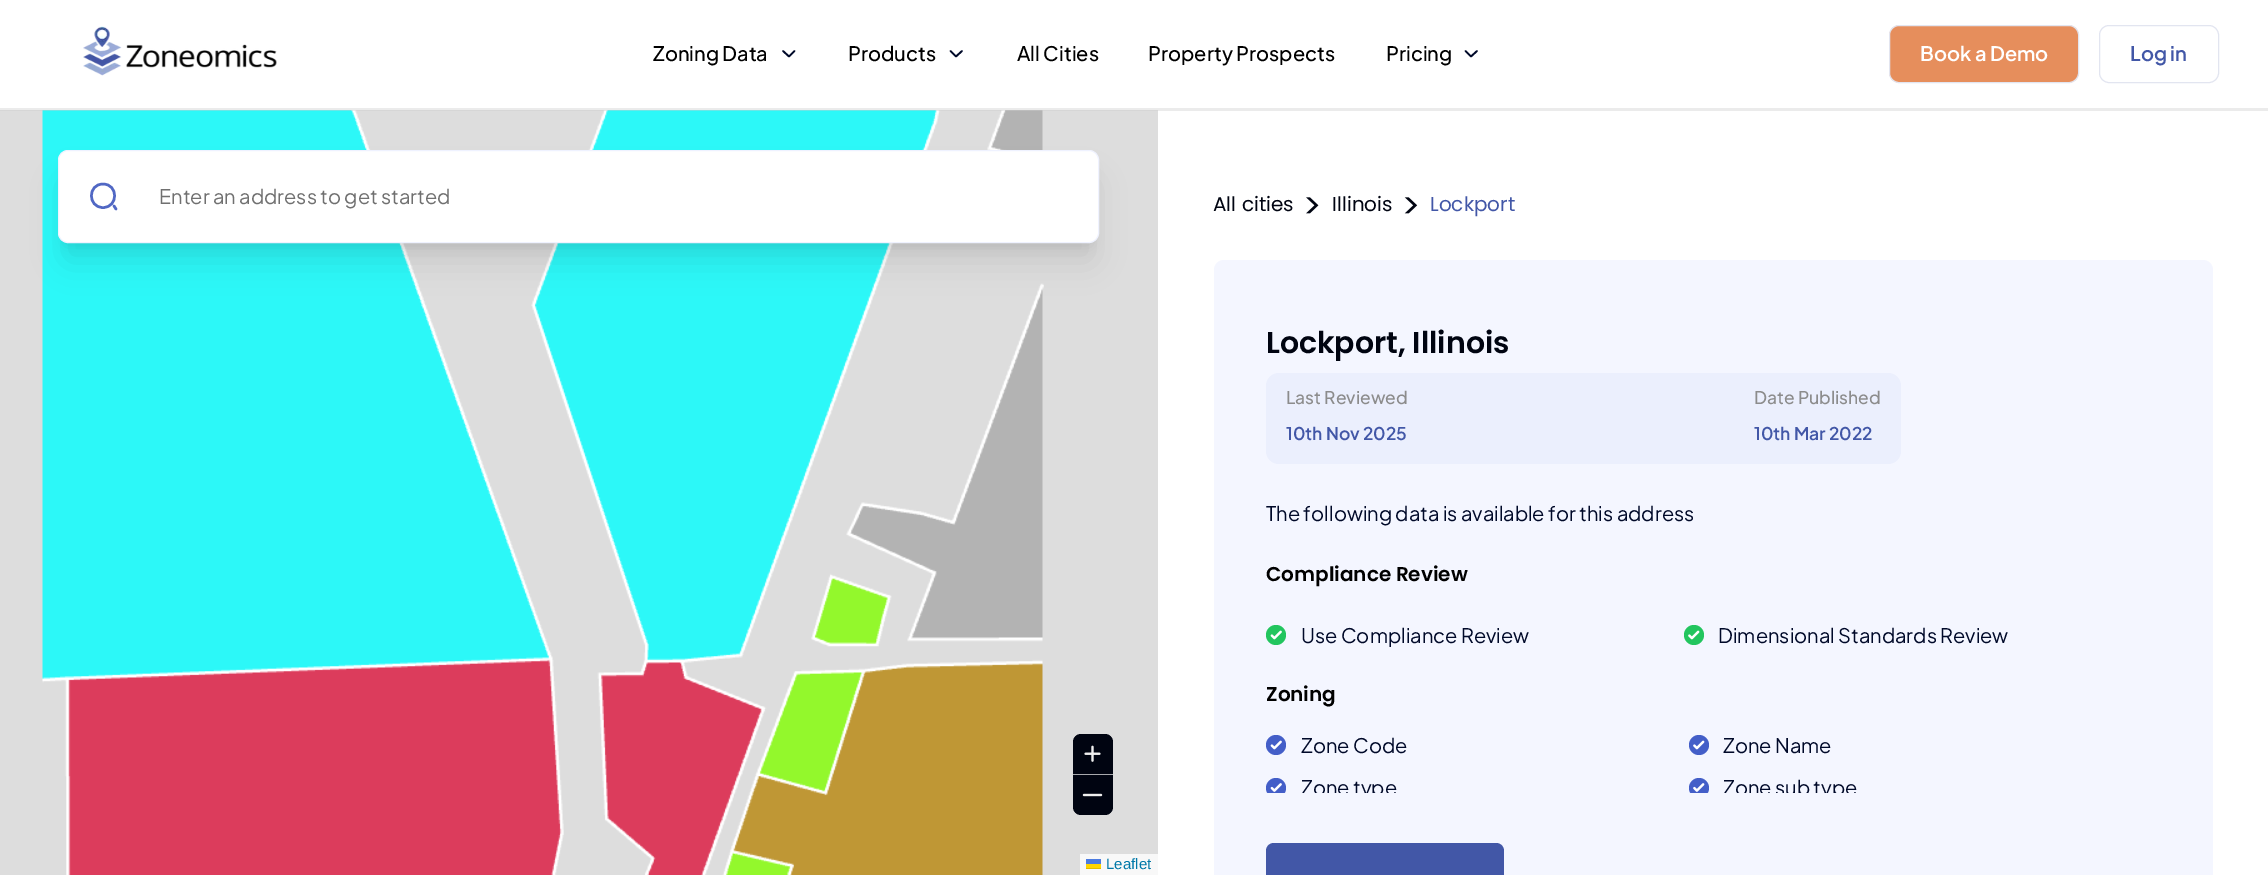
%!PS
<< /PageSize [2268 875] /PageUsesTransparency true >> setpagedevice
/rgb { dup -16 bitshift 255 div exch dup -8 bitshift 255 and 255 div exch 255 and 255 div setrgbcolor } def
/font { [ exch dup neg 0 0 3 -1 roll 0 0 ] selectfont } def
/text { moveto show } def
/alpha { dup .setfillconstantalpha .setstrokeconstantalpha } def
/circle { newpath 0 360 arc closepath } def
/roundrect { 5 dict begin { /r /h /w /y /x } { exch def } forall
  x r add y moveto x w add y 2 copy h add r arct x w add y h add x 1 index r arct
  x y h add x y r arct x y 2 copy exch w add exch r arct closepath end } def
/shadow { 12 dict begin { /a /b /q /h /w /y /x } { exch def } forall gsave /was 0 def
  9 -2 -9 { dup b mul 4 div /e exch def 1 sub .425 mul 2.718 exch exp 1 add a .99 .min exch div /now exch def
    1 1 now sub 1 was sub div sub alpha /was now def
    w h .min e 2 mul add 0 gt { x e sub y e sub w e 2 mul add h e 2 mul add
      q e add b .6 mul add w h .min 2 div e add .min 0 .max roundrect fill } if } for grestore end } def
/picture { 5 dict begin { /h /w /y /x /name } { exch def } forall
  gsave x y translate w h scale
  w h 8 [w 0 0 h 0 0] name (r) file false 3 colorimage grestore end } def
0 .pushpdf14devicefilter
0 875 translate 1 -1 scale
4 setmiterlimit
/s1 { /PlusJakartaSans-Medium 20 font 16#000000 rgb } def
/s2 { /PlusJakartaSans-SemiBold 20 font 16#FFFFFF rgb } def
/s3 { /PlusJakartaSans-SemiBold 20 font 16#4257A7 rgb } def
/s4 { /PlusJakartaSans-Regular 20 font 16#707070 rgb } def
/s5 { /LiberationSans-Regular 15 font 16#0078A8 rgb } def
/s6 { /Poppins-Regular 20 font 16#000411 rgb } def
/s7 { /Poppins-Regular 20 font 16#4257A7 rgb } def
/s8 { /Poppins-SemiBold 30 font 16#000411 rgb } def
/s9 { /PlusJakartaSans-Medium 17.5 font 16#8C8C8C rgb } def
/s10 { /PlusJakartaSans-SemiBold 17.5 font 16#4257A7 rgb } def
/s11 { /PlusJakartaSans-Regular 20 font 16#000929 rgb } def
/s12 { /Poppins-SemiBold 20 font 16#000000 rgb } def
16#FFFFFF rgb
0 0 2268 875 rectfill
16#DDDDDD rgb
0 110 1158 765 rectfill
(pic2.raw) 42 110 1002 765 picture
0.4 alpha
16#CCCCCC rgb
0 108 2268 3 rectfill
1 alpha
(pic1.raw) 83 26 194 50 picture
s1
(Zoning Data) 653 61 text
16#000929 rgb
1.7 setlinewidth
1 setlinecap
1 setlinejoin
783 51 moveto 789 56.5 lineto 794.5 51 lineto stroke
s1
(Products) 848 61 text
16#000929 rgb
950.5 51 moveto 956 56.5 lineto 962 51 lineto stroke
s1
(All Cities) 1017 61 text
(Property Prospects) 1148 61 text
(Pricing) 1386 61 text
16#000929 rgb
1465.5 51 moveto 1471 56.5 lineto 1477 51 lineto stroke
16#E68E5C rgb
1889.5 25.5 189 57 9.5 roundrect gsave fill grestore
16#E2E5F0 rgb
1 setlinewidth
0 setlinecap
0 setlinejoin
stroke
s2
(Book a Demo) 1920 61 text
16#E2E5F0 rgb
2099.5 25.5 119 57 9.5 roundrect stroke
s3
(Log in) 2130 61 text
16#000000 rgb
65 168 1026 77 2.5 6 0.1 shadow
64 181 1029 80 4 15.5 0.1 shadow
16#FFFFFF rgb
58.5 150.5 1040 92 9.5 roundrect gsave fill grestore
16#EFF2FF rgb
stroke
16#5168C4 rgb
2.5 setlinewidth
1 setlinecap
1 setlinejoin
103 207.5 moveto 118.5 207.5 118.5 184 103 184 curveto 87.5 184 87.5 207.5 103 207.5 curveto closepath 116 209 moveto 114 206 lineto stroke
s4
(Enter an address to get started) 159 204 text
16#000411 rgb
1073 734 40 81 8 roundrect fill
16#A8A9AD rgb
1073 774 40 1 rectfill
(pic3.raw) 1084 745 17 17 picture
(pic4.raw) 1082 793 21 4 picture
16#F8F8F8 rgb
1080 854 78 21 rectfill
s5
(Leaflet) 1106 869 text
16#4C7BE1 rgb
1086 859 15 5 rectfill
16#FFD500 rgb
1086 864 15 4 rectfill
16#E0BC00 rgb
1086 868 15 1 rectfill
s6
(All cities) 1213 211 text
(pic5.raw) 1306 197 13 17 picture
(Illinois) 1332 211 text
(pic6.raw) 1404 197 14 17 picture
s7
(Lockport) 1430 211 text
16#F4F6FF rgb
1224 260 moveto 2203 260 lineto 2208.5 260 2213 264.5 2213 270 curveto 2213 875 lineto 1214 875 lineto 1214 270 lineto 1214 264.5 1218.5 260 1224 260 curveto closepath fill
s8
(Lockport, Illinois) 1266 353 text
16#EBEFFD rgb
1266 373 635 91 13 roundrect fill
s9
(Last Reviewed) 1286 404 text
s10
(10th Nov 2025) 1286 440 text
s9
(Date Published) 1754 404 text
s10
(10th Mar 2022) 1754 440 text
s11
(The following data is available for this address) 1266 521 text
s12
(Compliance Review) 1266 581 text
16#22C55E rgb
1276 635 10 circle fill
(pic7.raw) 1270 630 12 10 picture
s11
(Use Compliance Review) 1301 643 text
16#22C55E rgb
1694 635 10 circle fill
(pic8.raw) 1688 630 12 10 picture
s11
(Dimensional Standards Review) 1718 643 text
s12
(Zoning) 1266 701 text
16#435EC8 rgb
1276 745 10 circle fill
(pic9.raw) 1270 740 12 10 picture
s11
(Zone Code) 1301 753 text
16#435EC8 rgb
1699 745 10 circle fill
(pic10.raw) 1693 740 12 10 picture
s11
(Zone Name) 1723 753 text
gsave
1266 680 894 113 rectclip
16#435EC8 rgb
1276 788 10 circle fill
grestore
(pic11.raw) 1270 783 12 9 picture
gsave
1266 680 894 113 rectclip
(Zone type) 1301 795 text
16#435EC8 rgb
1699 788 10 circle fill
grestore
(pic12.raw) 1693 783 12 9 picture
gsave
1266 680 894 113 rectclip
(Zone sub type) 1723 795 text
grestore
16#4257A7 rgb
1274 843 moveto 1496 843 lineto 1500.5 843 1504 846.5 1504 851 curveto 1504 875 lineto 1266 875 lineto 1266 851 lineto 1266 846.5 1269.5 843 1274 843 curveto closepath fill
.poppdf14devicefilter showpage
